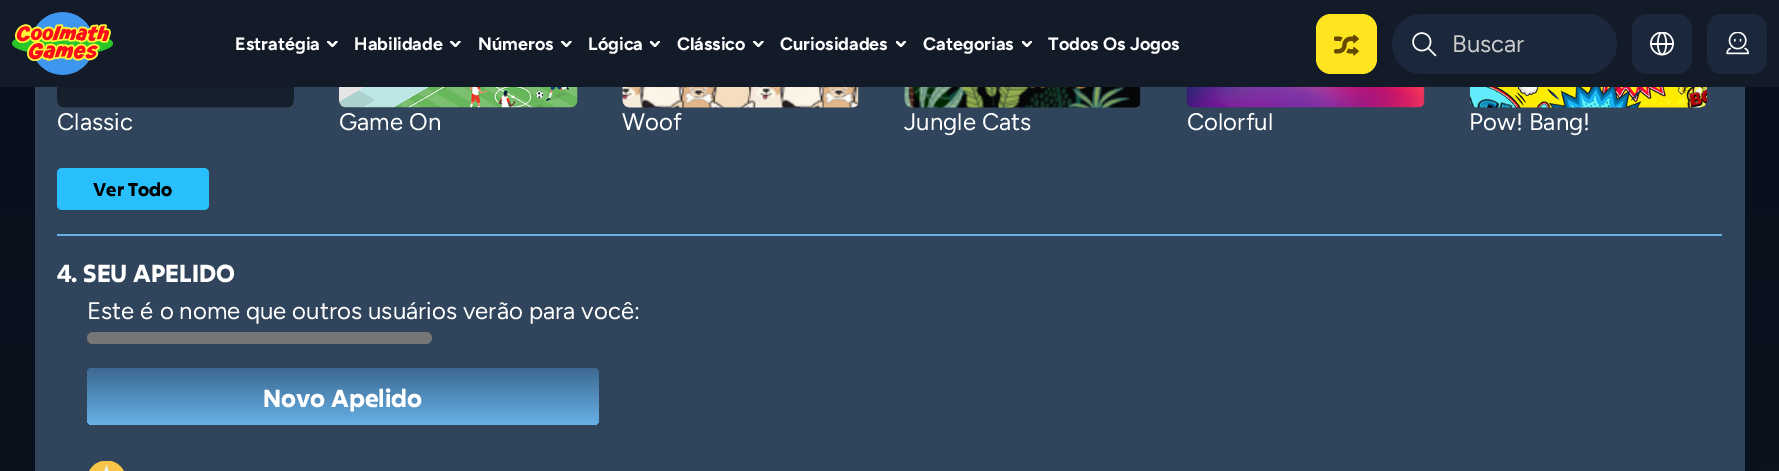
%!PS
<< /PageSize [1779 471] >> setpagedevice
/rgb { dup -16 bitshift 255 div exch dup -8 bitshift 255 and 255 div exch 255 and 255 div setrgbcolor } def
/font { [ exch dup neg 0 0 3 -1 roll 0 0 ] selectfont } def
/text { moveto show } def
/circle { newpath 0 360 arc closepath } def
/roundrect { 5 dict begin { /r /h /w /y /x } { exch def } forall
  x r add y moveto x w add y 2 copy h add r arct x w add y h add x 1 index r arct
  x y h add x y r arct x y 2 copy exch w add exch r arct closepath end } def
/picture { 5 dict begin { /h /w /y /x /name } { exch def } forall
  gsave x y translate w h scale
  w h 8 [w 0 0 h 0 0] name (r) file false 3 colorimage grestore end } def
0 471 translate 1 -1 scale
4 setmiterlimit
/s1 { /Figtree-Bold 18 font 16#FFFFFF rgb } def
/s2 { /Figtree-Regular 24 font 16#CDCDCD rgb } def
/s3 { /Figtree-Regular 24 font 16#FFFFFF rgb } def
/s4 { /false-Bold 18 font 16#000000 rgb } def
/s5 { /false-Bold 24 font 16#FFFFFF rgb } def
16#FFFFFF rgb
0 0 1779 471 rectfill
gsave 0 87 moveto 1779 87 lineto 1779 471 lineto 0 471 lineto closepath clip newpath
<< /ShadingType 2 /ColorSpace /DeviceRGB /Coords [889 -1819 890 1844] /Extend [true true] /Function << /FunctionType 3 /Domain [0 1] /Functions [<< /FunctionType 2 /Domain [0 1] /C0 [0.024 0.051 0.098] /C1 [0.024 0.051 0.098] /N 1 >> << /FunctionType 2 /Domain [0 1] /C0 [0.024 0.051 0.098] /C1 [0.075 0.106 0.161] /N 1 >>] /Bounds [0.37] /Encode [0 1 0 1] >> >> shfill grestore
16#131B29 rgb
0 0 1779 87 rectfill
(pic1.raw) 12 12 101 63 picture
s1
(Estratégia) 235 50 text
gsave
327 41 11 6 rectclip
2.2 setlinewidth
1 setlinecap
1 setlinejoin
332.5 46 moveto 328 41.5 lineto 332.5 46 moveto 336.5 41.5 lineto stroke
grestore
(Habilidade) 354 50 text
gsave
450 41 11 6 rectclip
2.2 setlinewidth
1 setlinecap
1 setlinejoin
455.5 46 moveto 451 41.5 lineto 455.5 46 moveto 459.5 41.5 lineto stroke
grestore
(Números) 478 50 text
gsave
561 41 11 6 rectclip
2.2 setlinewidth
1 setlinecap
1 setlinejoin
566.5 46 moveto 562 41.5 lineto 566.5 46 moveto 570.5 41.5 lineto stroke
grestore
(Lógica) 588 50 text
gsave
650 41 10 6 rectclip
2.2 setlinewidth
1 setlinecap
1 setlinejoin
655 46 moveto 650.5 41.5 lineto 655 46 moveto 659 41.5 lineto stroke
grestore
(Clássico) 677 50 text
gsave
753 41 11 6 rectclip
2.2 setlinewidth
1 setlinecap
1 setlinejoin
758.5 46 moveto 754 41.5 lineto 758.5 46 moveto 762.5 41.5 lineto stroke
grestore
(Curiosidades) 780 50 text
gsave
896 41 10 6 rectclip
2.2 setlinewidth
1 setlinecap
1 setlinejoin
901 46 moveto 896.5 41.5 lineto 901 46 moveto 905 41.5 lineto stroke
grestore
(Categorias) 923 50 text
gsave
1022 41 10 6 rectclip
2.2 setlinewidth
1 setlinecap
1 setlinejoin
1027 46 moveto 1022.5 41.5 lineto 1027 46 moveto 1031 41.5 lineto stroke
grestore
(Todos Os Jogos) 1048 50 text
16#FFE420 rgb
1316 14 61 60 15 roundrect fill
(pic2.raw) 1334 35 25 21 picture
16#1B283B rgb
1392 14 225 60 30 roundrect fill
(pic3.raw) 1412 32 25 25 picture
s2
(Buscar) 1452 52 text
16#1B283B rgb
1632 14 60 60 15 roundrect fill
(pic4.raw) 1650 32 24 24 picture
1707 14 60 60 15 roundrect fill
(pic5.raw) 1726 32 23 23 picture
16#30445B rgb
35 87 1710 384 rectfill
(pic6.raw) 57 87 237 21 picture
s3
(Classic) 57 130 text
(pic7.raw) 339 87 239 21 picture
(Game On) 339 130 text
(pic8.raw) 622 87 237 21 picture
(Woof) 622 130 text
(pic9.raw) 904 87 237 21 picture
(Jungle Cats) 904 130 text
(pic10.raw) 1186 87 239 21 picture
(Colorful) 1187 130 text
(pic11.raw) 1470 87 237 21 picture
(Pow! Bang!) 1469 130 text
16#29BFFD rgb
57 168 152 42 5 roundrect fill
s4
(Ver Todo) 93 196 text
16#67B1E7 rgb
57 234 1665 2 rectfill
s5
(4. SEU APELIDO) 57 282 text
s3
(Este é o nome que outros usuários verão para você:) 87 319 text
16#767676 rgb
87 332 345 12 6 roundrect fill
gsave 87 368 512 57 6 roundrect clip newpath
<< /ShadingType 2 /ColorSpace /DeviceRGB /Coords [343 367 343 425] /Extend [true true] /Function << /FunctionType 2 /Domain [0 1] /C0 [0.231 0.404 0.561] /C1 [0.404 0.694 0.906] /N 1 >> >> shfill grestore
s5
(Novo Apelido) 263 407 text
gsave
87 461 39 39 rectclip
16#F7C649 rgb
106.5 480 19.5 circle fill
grestore
16#E9F6FE rgb
106.5 465 moveto 110 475.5 lineto 121 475.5 lineto 112 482 lineto 115.5 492 lineto 106.5 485.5 lineto 97.5 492 lineto 101 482 lineto 92 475.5 lineto 103 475.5 lineto closepath fill
showpage
